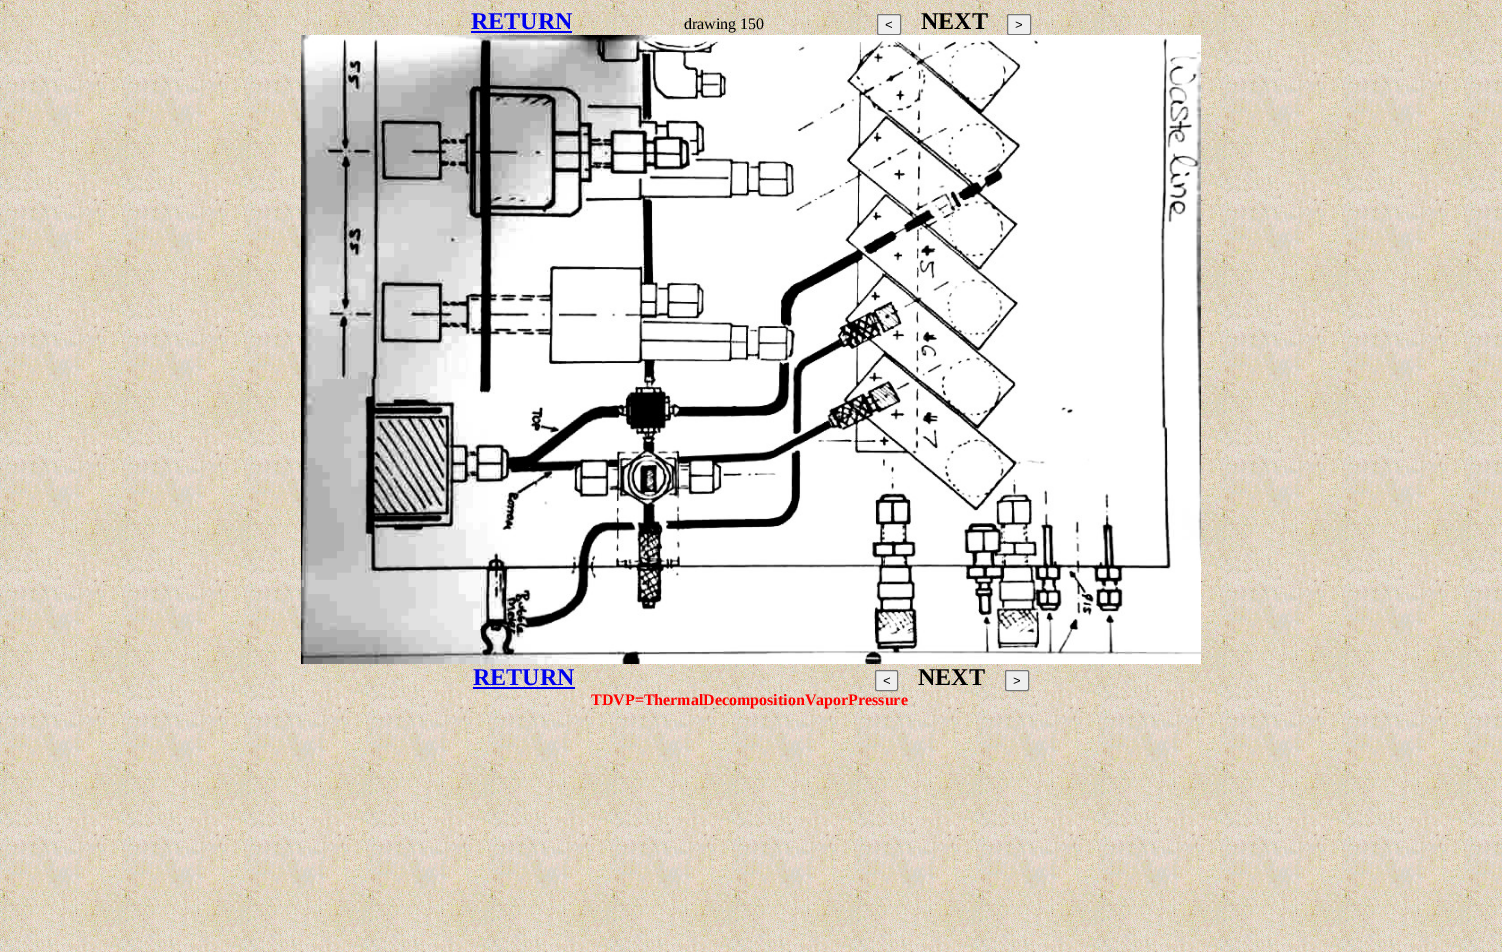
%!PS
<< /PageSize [1502 952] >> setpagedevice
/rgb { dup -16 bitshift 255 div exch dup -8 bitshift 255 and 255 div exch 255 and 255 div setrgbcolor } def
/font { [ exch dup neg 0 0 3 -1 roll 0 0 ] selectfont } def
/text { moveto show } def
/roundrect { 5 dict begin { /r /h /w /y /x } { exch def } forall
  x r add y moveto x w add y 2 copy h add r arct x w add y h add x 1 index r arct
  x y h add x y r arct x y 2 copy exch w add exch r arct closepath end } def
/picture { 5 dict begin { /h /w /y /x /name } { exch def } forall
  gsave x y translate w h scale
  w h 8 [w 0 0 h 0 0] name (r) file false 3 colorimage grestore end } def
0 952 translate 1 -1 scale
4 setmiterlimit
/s1 { /LiberationSerif-Bold 24 font 16#0000EE rgb } def
/s2 { /LiberationSerif-Regular 16 font 16#000000 rgb } def
/s3 { /LiberationSans-Regular 13 font 16#000000 rgb } def
/s4 { /LiberationSerif-Bold 24 font 16#000000 rgb } def
/s5 { /LiberationSerif-Bold 16 font 16#FF0000 rgb } def
16#FFFFFF rgb
0 0 1502 952 rectfill
(pic1.raw) 0 0 1502 952 picture
s1
(RETURN) 471 29 text
471 31 101 2 rectfill
s2
(drawing 150) 684 29 text
16#EFEFEF rgb
877.5 14.5 23 20 1.5 roundrect gsave fill grestore
16#767676 rgb
stroke
s3
(<) 885 29 text
s4
(NEXT) 921 29 text
16#EFEFEF rgb
1007.5 14.5 23 20 1.5 roundrect gsave fill grestore
16#767676 rgb
stroke
s3
(>) 1015 29 text
(pic2.raw) 301 35 900 629 picture
s1
(RETURN) 473 685 text
473 687 102 2 rectfill
16#EFEFEF rgb
875.5 670.5 22 20 1.5 roundrect gsave fill grestore
16#767676 rgb
stroke
s3
(<) 883 685 text
s4
(NEXT) 918 685 text
16#EFEFEF rgb
1005.5 670.5 23 20 1.5 roundrect gsave fill grestore
16#767676 rgb
stroke
s3
(>) 1013 685 text
s5
(TDVP=ThermalDecompositionVaporPressure) 591 705 text
showpage
